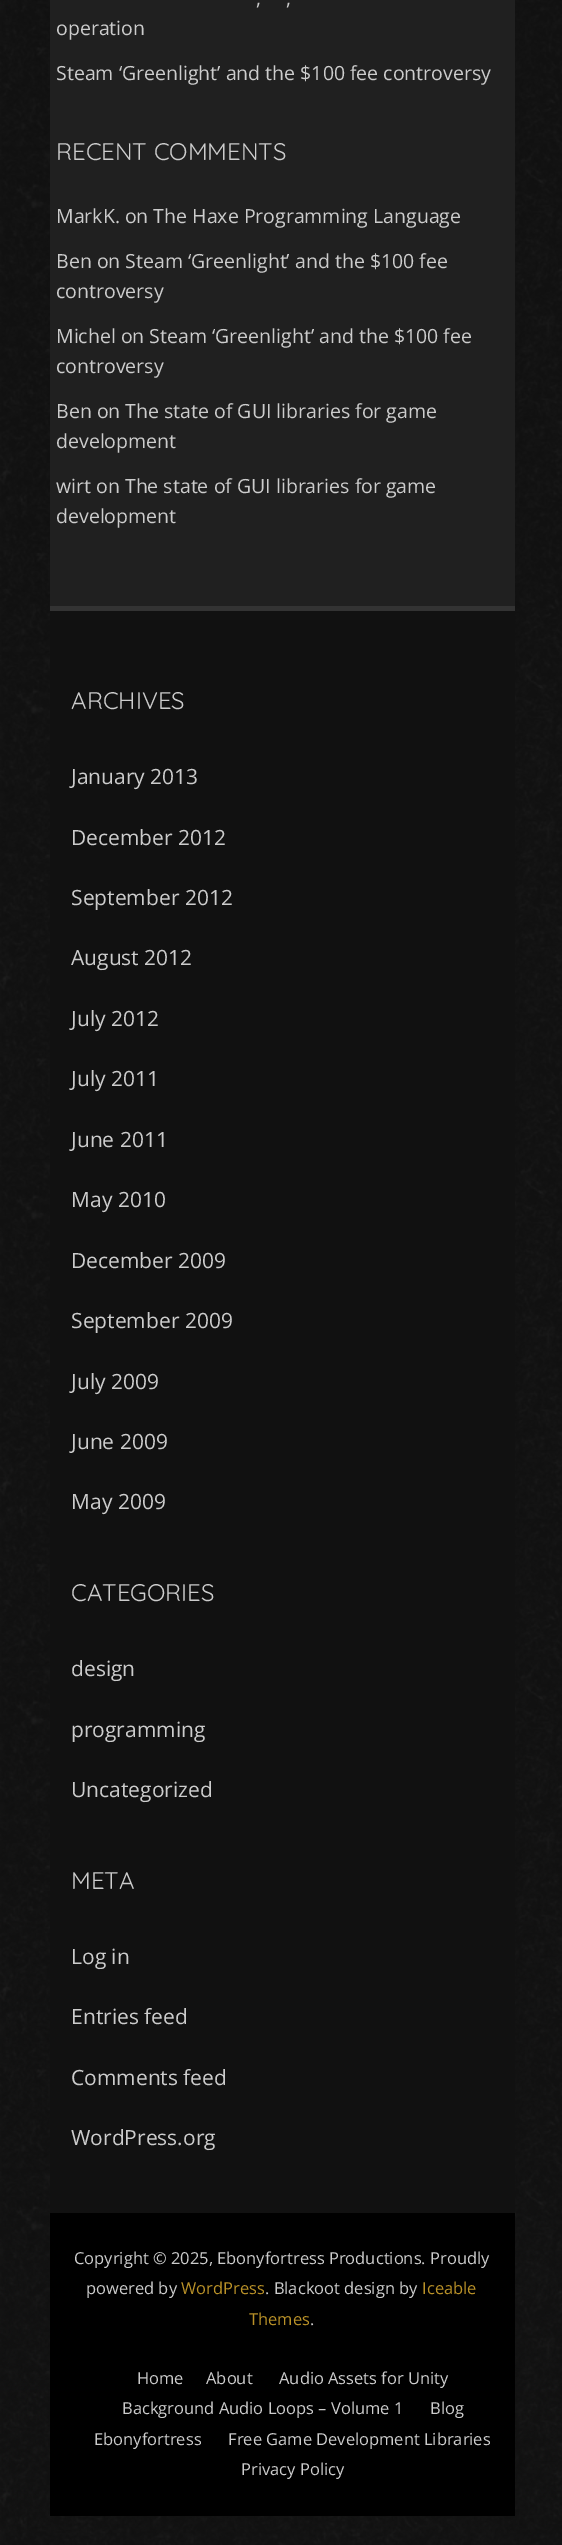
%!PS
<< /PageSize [562 2545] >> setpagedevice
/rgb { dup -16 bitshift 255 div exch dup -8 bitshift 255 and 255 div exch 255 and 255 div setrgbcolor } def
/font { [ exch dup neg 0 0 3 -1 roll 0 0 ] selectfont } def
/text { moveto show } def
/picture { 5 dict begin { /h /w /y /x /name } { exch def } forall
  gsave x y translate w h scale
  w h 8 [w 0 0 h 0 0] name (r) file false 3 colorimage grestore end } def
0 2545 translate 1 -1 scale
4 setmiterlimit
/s1 { /OpenSans-Regular 19.5 font 16#CCCCCC rgb } def
/s2 { /Quicksand-Regular 24 font 16#CCCCCC rgb } def
/s3 { /OpenSans-Regular 21 font 16#CCCCCC rgb } def
/s4 { /OpenSans-Regular 16.5 font 16#CCCCCC rgb } def
/s5 { /OpenSans-Regular 16.5 font 16#B99128 rgb } def
16#FFFFFF rgb
0 0 562 2545 rectfill
(pic1.raw) 0 0 562 2545 picture
16#202020 rgb
50 0 465 606 rectfill
s1
(,) 256 5 text
(,) 286 5 text
(operation) 56 35 text
(Steam ‘Greenlight’ and the $100 fee controversy) 56 80 text
s2
(RECENT COMMENTS) 56 160 text
s1
(MarkK. on The Haxe Programming Language) 56 223 text
(Ben on Steam ‘Greenlight’ and the $100 fee) 56 268 text
(controversy) 56 298 text
(Michel on Steam ‘Greenlight’ and the $100 fee) 56 343 text
(controversy) 56 373 text
(Ben on The state of GUI libraries for game) 56 418 text
(development) 56 448 text
(wirt on The state of GUI libraries for game) 56 493 text
(development) 56 523 text
16#111111 rgb
50 611 465 1602 rectfill
16#333333 rgb
50 606 465 5 rectfill
s2
(ARCHIVES) 71 709 text
s3
(January 2013) 71 784 text
(December 2012) 71 845 text
(September 2012) 71 905 text
(August 2012) 71 965 text
(July 2012) 71 1026 text
(July 2011) 71 1086 text
(June 2011) 71 1147 text
(May 2010) 71 1207 text
(December 2009) 71 1268 text
(September 2009) 71 1328 text
(July 2009) 71 1389 text
(June 2009) 71 1449 text
(May 2009) 71 1509 text
s2
(CATEGORIES) 71 1601 text
s3
(design) 71 1676 text
(programming) 71 1737 text
(Uncategorized) 71 1797 text
s2
(META) 71 1889 text
s3
(Log in) 71 1964 text
(Entries feed) 71 2024 text
(Comments feed) 71 2085 text
(WordPress.org) 71 2145 text
16#000000 rgb
50 2213 465 303 rectfill
s4
(Copyright © 2025, Ebonyfortress Productions. Proudly) 74 2264 text
(powered by) 86 2294 text
s5
(WordPress) 181 2294 text
s4
(. Blackoot design by) 265 2294 text
s5
(Iceable) 422 2294 text
(Themes) 249 2325 text
s4
(.) 310 2325 text
(Home) 137 2384 text
(About) 206 2384 text
(Audio Assets for Unity) 279 2384 text
(Background Audio Loops – Volume 1) 122 2414 text
(Blog) 430 2414 text
(Ebonyfortress) 94 2445 text
(Free Game Development Libraries) 228 2445 text
(Privacy Policy) 241 2475 text
showpage
